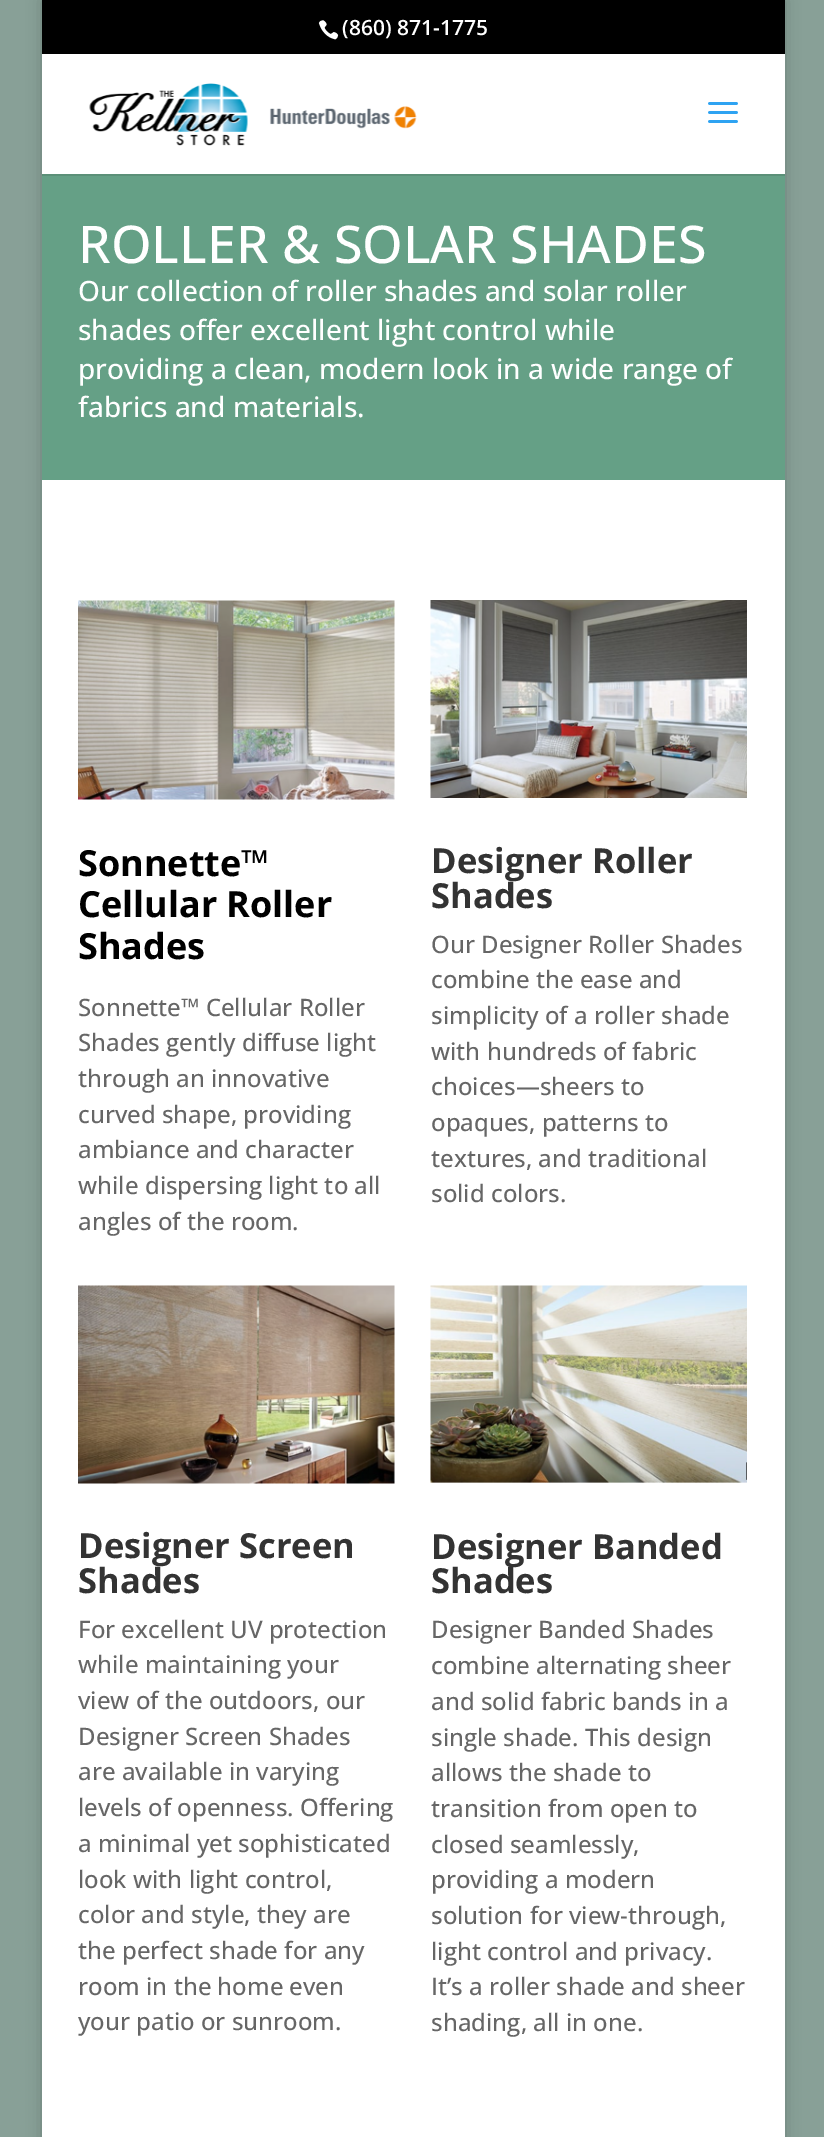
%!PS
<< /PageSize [824 2137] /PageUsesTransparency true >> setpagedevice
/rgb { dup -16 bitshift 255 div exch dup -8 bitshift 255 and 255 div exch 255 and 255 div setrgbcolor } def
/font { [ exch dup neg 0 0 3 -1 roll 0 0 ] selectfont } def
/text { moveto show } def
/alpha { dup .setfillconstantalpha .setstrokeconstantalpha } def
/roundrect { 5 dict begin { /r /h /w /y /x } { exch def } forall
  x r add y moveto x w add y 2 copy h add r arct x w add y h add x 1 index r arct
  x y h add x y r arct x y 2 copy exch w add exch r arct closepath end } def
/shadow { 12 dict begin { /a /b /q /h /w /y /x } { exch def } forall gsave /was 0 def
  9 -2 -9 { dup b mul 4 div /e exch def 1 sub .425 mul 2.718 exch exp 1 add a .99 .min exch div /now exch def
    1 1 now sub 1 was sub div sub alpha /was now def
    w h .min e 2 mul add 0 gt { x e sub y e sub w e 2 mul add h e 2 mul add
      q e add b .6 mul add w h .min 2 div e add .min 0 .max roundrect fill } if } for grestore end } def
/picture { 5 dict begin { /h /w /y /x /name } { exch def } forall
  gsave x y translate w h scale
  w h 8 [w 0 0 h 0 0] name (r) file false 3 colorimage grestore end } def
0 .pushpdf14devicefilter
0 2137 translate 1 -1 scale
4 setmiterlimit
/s1 { /OpenSans-SemiBold 21 font 16#FFFFFF rgb } def
/s2 { /OpenSans-Medium 52 font 16#FFFFFF rgb } def
/s3 { /OpenSans-Medium 28 font 16#FFFFFF rgb } def
/s4 { /OpenSans-Bold 36 font 16#000000 rgb } def
/s5 { /OpenSans-Medium 24 font 16#666666 rgb } def
/s6 { /OpenSans-Bold 34.5 font 16#333333 rgb } def
16#88A097 rgb
0 0 824 2137 rectfill
16#000000 rgb
42 0 743 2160 0 7.5 0.2 shadow
42 0 743 54 rectfill
(pic1.raw) 318 20 21 20 picture
s1
(\(860\) 871-1775) 342 35 text
16#65A086 rgb
42 174 743 306 rectfill
0.1 alpha
16#000000 rgb
42 174 moveto 42 176 lineto 785 176 lineto 785 56 lineto 784 56 lineto 784 174 lineto closepath fill
1 alpha
16#FFFFFF rgb
42 54 743 120 rectfill
(pic2.raw) 89 83 328 63 picture
(pic3.raw) 708 102 30 21 picture
s2
(ROLLER & SOLAR SHADES) 78 263 text
s3
(Our collection of roller shades and solar roller) 78 301 text
(shades offer excellent light control while) 78 340 text
(providing a clean, modern look in a wide range of) 78 379 text
(fabrics and materials.) 78 417 text
42 480 743 1657 rectfill
(pic4.raw) 78 600 317 200 picture
s4
(Sonnette™) 78 876 text
(Cellular Roller) 78 917 text
(Shades) 78 959 text
s5
(Sonnette™ Cellular Roller) 78 1016 text
(Shades gently diffuse light) 78 1051 text
(through an innovative) 78 1087 text
(curved shape, providing) 78 1123 text
(ambiance and character) 78 1158 text
(while dispersing light to all) 78 1194 text
(angles of the room.) 78 1230 text
(pic5.raw) 430 600 317 198 picture
s6
(Designer Roller) 431 873 text
(Shades) 431 908 text
s5
(Our Designer Roller Shades) 431 953 text
(combine the ease and) 431 988 text
(simplicity of a roller shade) 431 1024 text
(with hundreds of fabric) 431 1060 text
(choices—sheers to) 431 1095 text
(opaques, patterns to) 431 1131 text
(textures, and traditional) 431 1167 text
(solid colors.) 431 1202 text
(pic6.raw) 78 1285 317 199 picture
s6
(Designer Screen) 78 1558 text
(Shades) 78 1593 text
s5
(For excellent UV protection) 78 1638 text
(while maintaining your) 78 1673 text
(view of the outdoors, our) 78 1709 text
(Designer Screen Shades) 78 1745 text
(are available in varying) 78 1780 text
(levels of openness. Offering) 78 1816 text
(a minimal yet sophisticated) 78 1852 text
(look with light control,) 78 1888 text
(color and style, they are) 78 1923 text
(the perfect shade for any) 78 1959 text
(room in the home even) 78 1995 text
(your patio or sunroom.) 78 2030 text
(pic7.raw) 430 1285 317 198 picture
s6
(Designer Banded) 431 1559 text
(Shades) 431 1593 text
s5
(Designer Banded Shades) 431 1638 text
(combine alternating sheer) 431 1674 text
(and solid fabric bands in a) 431 1710 text
(single shade. This design) 431 1746 text
(allows the shade to) 431 1781 text
(transition from open to) 431 1817 text
(closed seamlessly,) 431 1853 text
(providing a modern) 431 1888 text
(solution for view-through,) 431 1924 text
(light control and privacy.) 431 1960 text
(It’s a roller shade and sheer) 431 1995 text
(shading, all in one.) 431 2031 text
.poppdf14devicefilter showpage
